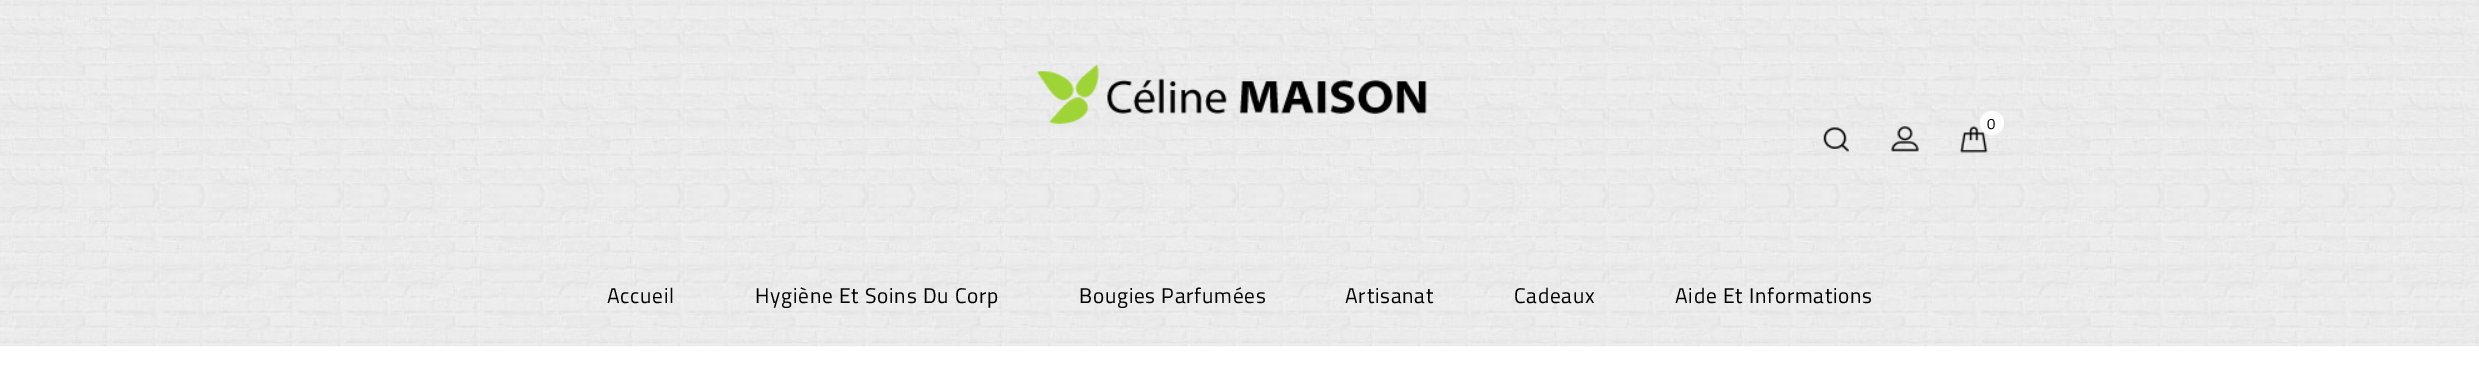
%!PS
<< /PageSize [2479 366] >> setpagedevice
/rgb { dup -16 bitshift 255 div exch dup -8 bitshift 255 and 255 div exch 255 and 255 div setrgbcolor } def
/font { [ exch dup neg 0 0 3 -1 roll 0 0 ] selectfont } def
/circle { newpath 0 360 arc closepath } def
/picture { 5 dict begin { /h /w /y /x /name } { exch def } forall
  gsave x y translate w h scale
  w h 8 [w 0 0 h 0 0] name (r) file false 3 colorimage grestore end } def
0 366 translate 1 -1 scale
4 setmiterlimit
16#FFFFFF rgb
0 0 2479 366 rectfill
(pic1.raw) 0 0 2479 347 picture
(pic2.raw) 1036 64 391 60 picture
(pic3.raw) 1960 126 28 27 picture
1992 123 12 circle fill
/TitilliumWeb-Regular 15 font
16#000000 rgb
1987 129 moveto 0.75 0 (0) ashow
(pic4.raw) 1823 127 26 25 picture
(pic5.raw) 1891 126 28 26 picture
/TitilliumWeb-Regular 21.25 font
607 303 moveto 0.75 0 (Accueil) ashow
755 303 moveto 0.75 0 (Hygiène Et Soins Du Corp) ashow
1079 303 moveto 0.75 0 (Bougies Parfumées) ashow
1345 303 moveto 0.75 0 (Artisanat) ashow
1514 303 moveto 0.75 0 (Cadeaux) ashow
1675 303 moveto 0.75 0 (Aide Et Informations) ashow
showpage
